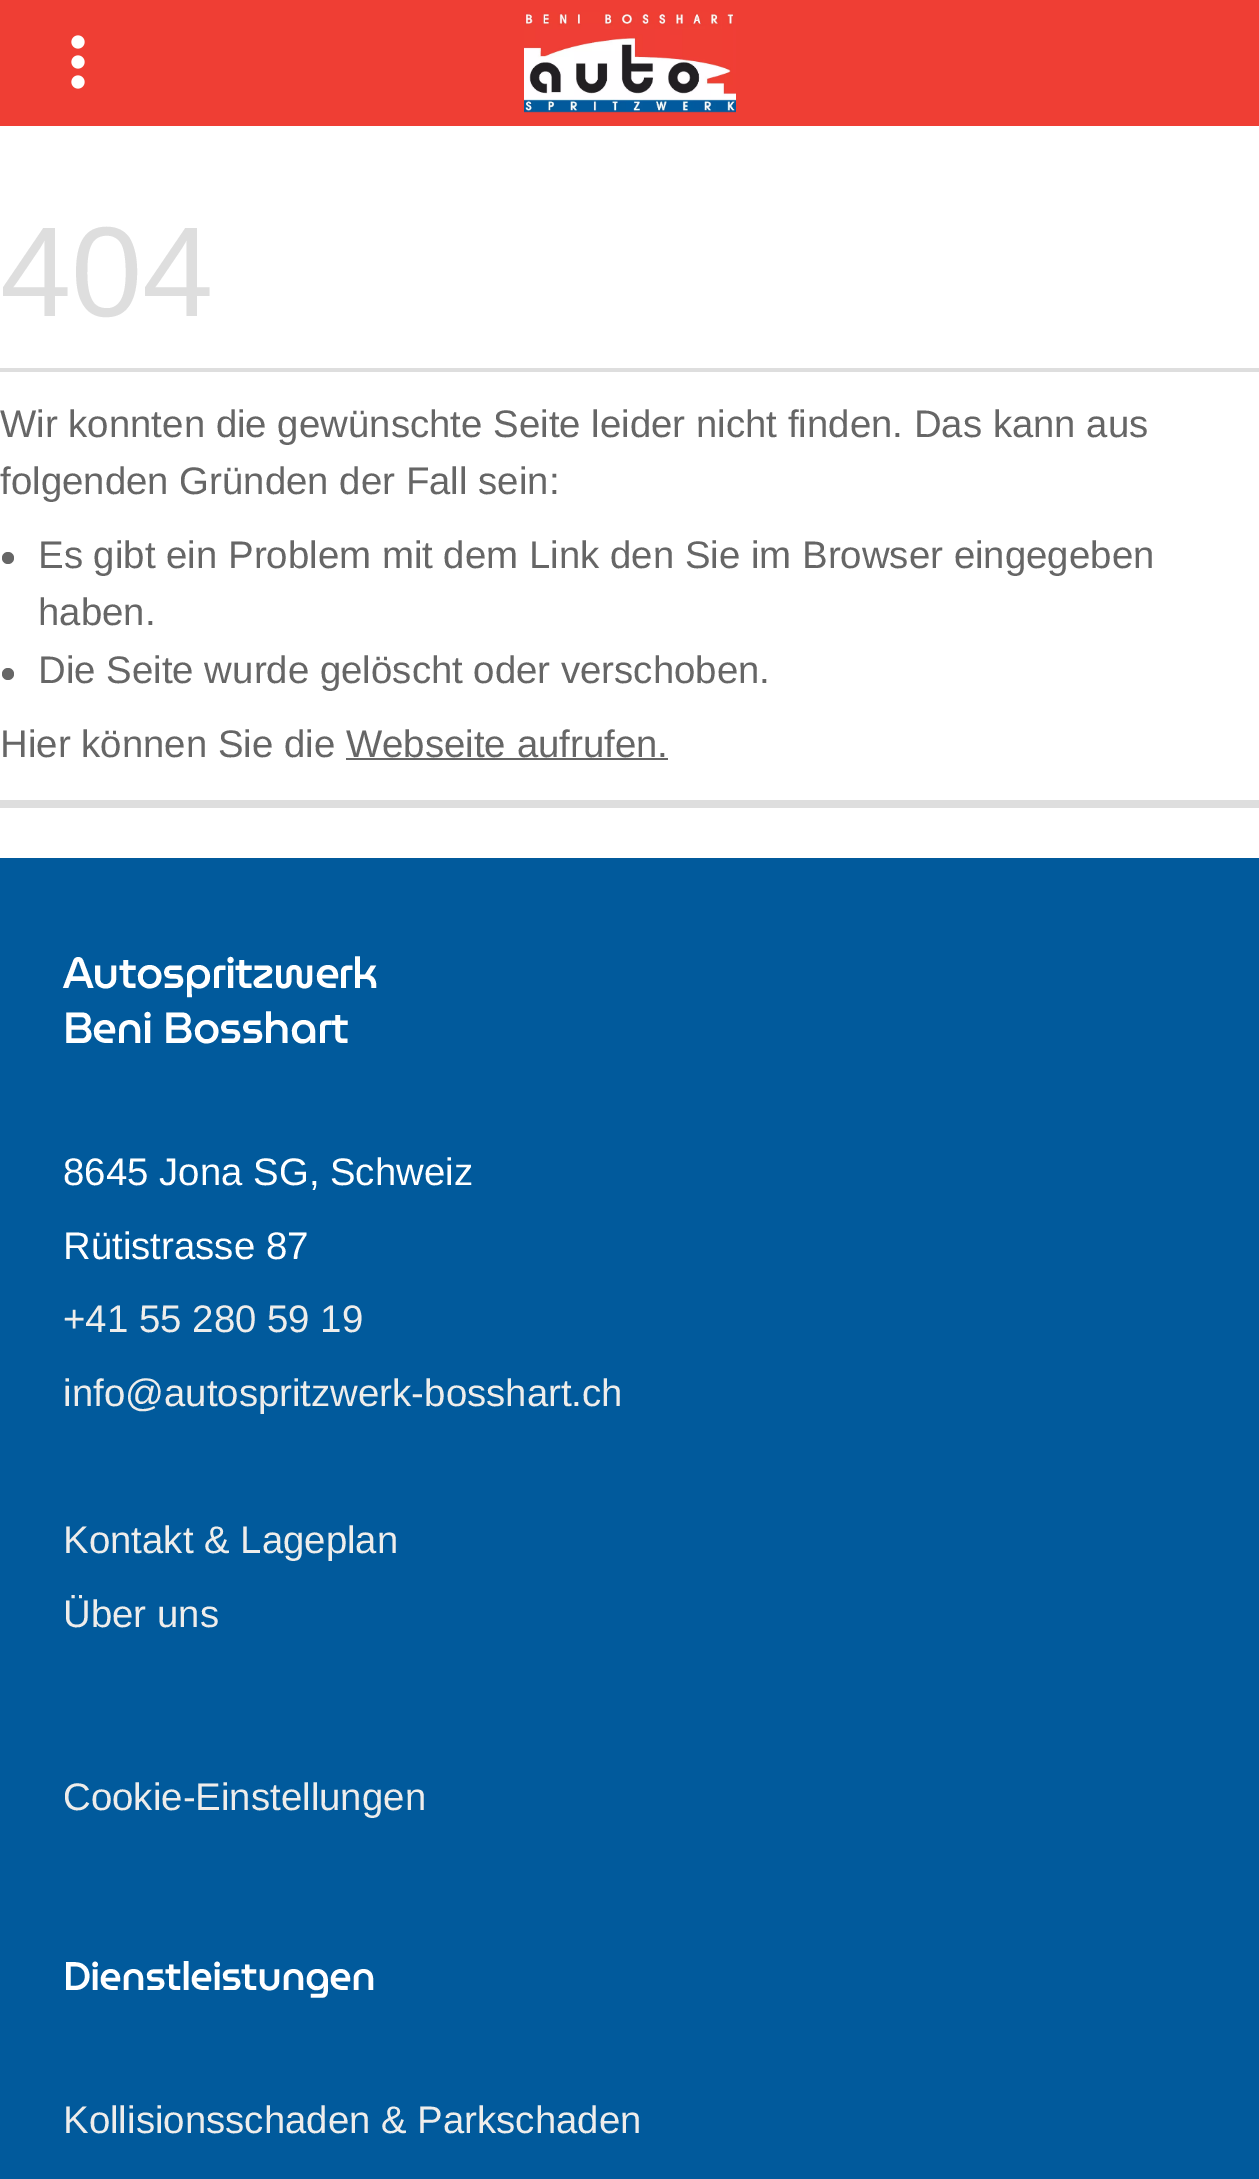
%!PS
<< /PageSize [1259 2179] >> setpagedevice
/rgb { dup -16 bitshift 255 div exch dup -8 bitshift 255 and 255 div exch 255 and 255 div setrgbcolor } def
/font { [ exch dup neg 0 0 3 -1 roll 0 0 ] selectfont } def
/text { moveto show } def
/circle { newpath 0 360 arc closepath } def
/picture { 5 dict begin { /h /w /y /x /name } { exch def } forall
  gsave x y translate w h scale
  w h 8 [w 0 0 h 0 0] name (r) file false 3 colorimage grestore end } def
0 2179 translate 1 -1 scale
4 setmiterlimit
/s1 { /LiberationSans-Regular 128 font 16#DEDEDE rgb } def
/s2 { /LiberationSans-Regular 38.4 font 16#666666 rgb } def
/s3 { /MuseoModerno-Bold 42 font 16#FFFFFF rgb } def
/s4 { /LiberationSans-Regular 38.4 font 16#FFFFFF rgb } def
/s5 { /LiberationSans-Regular 38.4 font 16#EEEDEB rgb } def
/s6 { /MuseoModerno-Bold 38.4 font 16#FFFFFF rgb } def
16#FFFFFF rgb
0 0 1259 2179 rectfill
16#EF3E34 rgb
0 0 1259 126 rectfill
(pic1.raw) 71 35 14 54 picture
(pic2.raw) 524 12 212 101 picture
s1
(404) 0 316 text
0 368 1259 4 rectfill
0 800 1259 8 rectfill
s2
(Wir konnten die gewünschte Seite leider nicht finden. Das kann aus) 0 437 text
(folgenden Gründen der Fall sein:) 0 494 text
8 558 6 circle fill
(Es gibt ein Problem mit dem Link den Sie im Browser eingegeben) 38 568 text
(haben.) 38 625 text
8 674 6 circle fill
(Die Seite wurde gelöscht oder verschoben.) 38 683 text
(Hier können Sie die Webseite aufrufen.) 0 757 text
346 758 322 2 rectfill
16#015A9C rgb
0 858 1259 1321 rectfill
s3
(Autospritzwerk) 63 988 text
(Beni Bosshart) 63 1043 text
s4
(8645 Jona SG, Schweiz) 63 1185 text
(Rütistrasse 87) 63 1259 text
s5
(+41 55 280 59 19) 63 1332 text
(info@autospritzwerk-bosshart.ch) 63 1406 text
(Kontakt & Lageplan) 63 1553 text
(Über uns) 63 1627 text
(Cookie-Einstellungen) 63 1810 text
s6
(Dienstleistungen) 63 1990 text
s5
(Kollisionsschaden & Parkschaden) 63 2133 text
showpage
